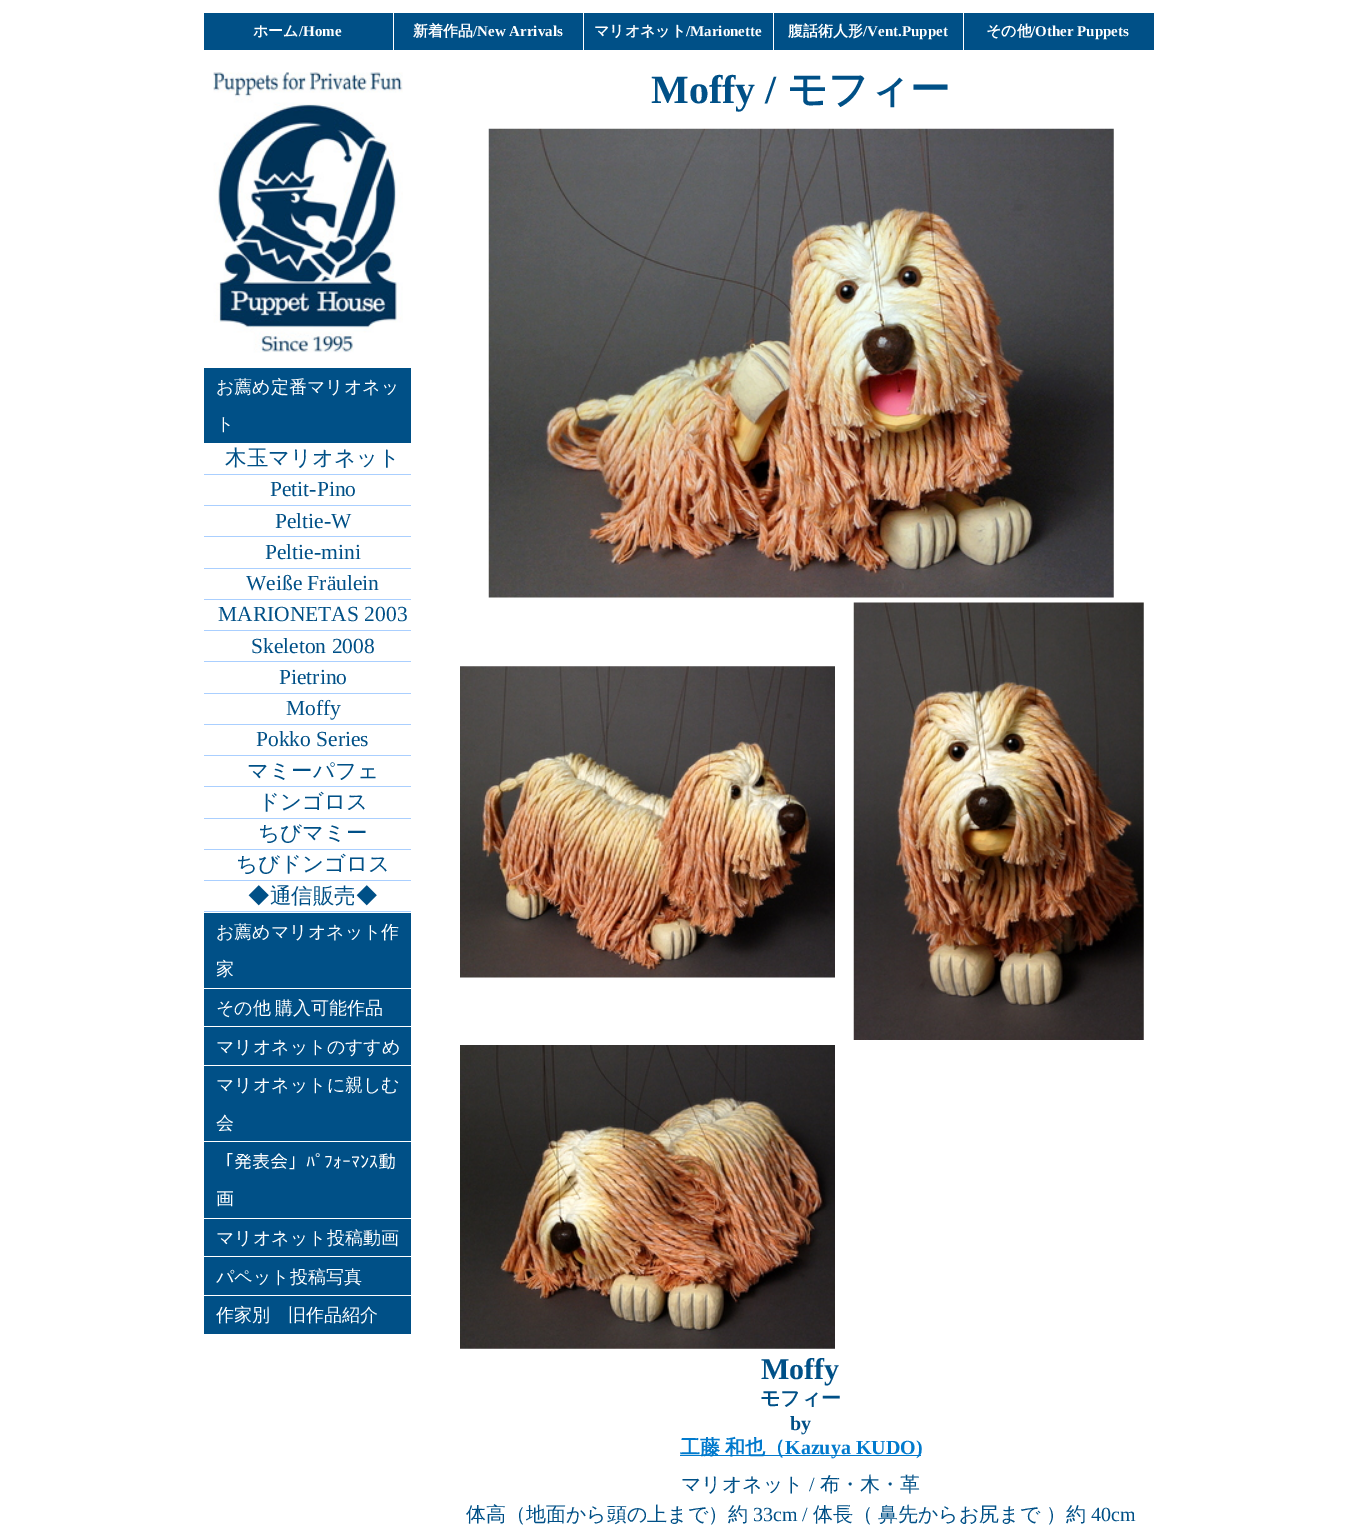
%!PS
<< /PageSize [1356 1531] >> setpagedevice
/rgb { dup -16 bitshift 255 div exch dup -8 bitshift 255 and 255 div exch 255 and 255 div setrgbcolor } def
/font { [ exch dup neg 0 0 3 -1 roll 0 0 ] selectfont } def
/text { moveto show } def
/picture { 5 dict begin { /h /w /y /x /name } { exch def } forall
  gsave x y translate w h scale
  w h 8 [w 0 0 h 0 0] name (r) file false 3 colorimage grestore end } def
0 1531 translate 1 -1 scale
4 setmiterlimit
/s1 { /WenQuanYiZenHei-Bold 15 font 16#FFFFFF rgb } def
/s2 { /LiberationSerif-Bold 15 font 16#FFFFFF rgb } def
/s3 { /WenQuanYiZenHei-Medium 18 font 16#FFFFFF rgb } def
/s4 { /WenQuanYiZenHei-Medium 21.5 font 16#005087 rgb } def
/s5 { /LiberationSerif-Regular 21.5 font 16#005087 rgb } def
/s6 { /IPAGothic-Regular 18 font 16#FFFFFF rgb } def
/s7 { /LiberationSerif-Bold 40 font 16#005087 rgb } def
/s8 { /WenQuanYiZenHei-Bold 40 font 16#005087 rgb } def
/s9 { /LiberationSerif-Bold 30 font 16#005087 rgb } def
/s10 { /WenQuanYiZenHei-Bold 20 font 16#005087 rgb } def
/s11 { /LiberationSerif-Bold 20 font 16#005087 rgb } def
/s12 { /WenQuanYiZenHei-Bold 20 font 16#017ACD rgb } def
/s13 { /LiberationSerif-Bold 20 font 16#017ACD rgb } def
/s14 { /WenQuanYiZenHei-Medium 20 font 16#005087 rgb } def
/s15 { /LiberationSerif-Regular 20 font 16#005087 rgb } def
16#FFFFFF rgb
0 0 1356 1531 rectfill
16#005087 rgb
964 13 190 37 rectfill
204 13 189 37 rectfill
s1
(ホーム) 253 36 text
s2
(/Home) 299 36 text
16#005087 rgb
394 13 189 37 rectfill
s1
(新着作品) 413 36 text
s2
(/New Arrivals) 473 36 text
16#005087 rgb
584 13 189 37 rectfill
s1
(マリオネット) 594 36 text
s2
(/Marionette) 686 36 text
16#005087 rgb
774 13 189 37 rectfill
s1
(腹話術人形) 788 36 text
s2
(/Vent.Puppet) 863 36 text
s1
(その他) 986 36 text
s2
(/Other Puppets) 1031 36 text
(pic1.raw) 213 72 190 281 picture
16#005087 rgb
204 368 207 75 rectfill
s3
(お薦め定番マリオネッ) 216 393 text
(ト) 216 430 text
16#AACFFF rgb
204 474 207 1 rectfill
s4
(木玉マリオネット) 225 465 text
16#AACFFF rgb
204 505 207 1 rectfill
s5
(Petit-Pino) 270 496 text
16#AACFFF rgb
204 536 207 1 rectfill
s5
(Peltie-W) 275 528 text
16#AACFFF rgb
204 568 207 1 rectfill
s5
(Peltie-mini) 265 559 text
16#AACFFF rgb
204 599 207 1 rectfill
s5
(Weiße Fräulein) 246 590 text
16#AACFFF rgb
204 630 207 1 rectfill
s5
(MARIONETAS 2003) 218 621 text
16#AACFFF rgb
204 661 207 1 rectfill
s5
(Skeleton 2008) 251 653 text
16#AACFFF rgb
204 693 207 1 rectfill
s5
(Pietrino) 279 684 text
16#AACFFF rgb
204 724 207 1 rectfill
s5
(Moffy) 286 715 text
16#AACFFF rgb
204 755 207 1 rectfill
s5
(Pokko Series) 256 746 text
16#AACFFF rgb
204 786 207 1 rectfill
s4
(マミーパフェ) 247 778 text
16#AACFFF rgb
204 818 207 1 rectfill
s4
(ドンゴロス) 258 809 text
16#AACFFF rgb
204 849 207 1 rectfill
s4
(ちびマミー) 258 840 text
16#AACFFF rgb
204 880 207 1 rectfill
s4
(ちびドンゴロス) 236 871 text
16#AACFFF rgb
204 911 207 1 rectfill
s4
(◆通信販売◆) 248 903 text
204 913 207 75 rectfill
s3
(お薦めマリオネット作) 216 938 text
(家) 216 975 text
16#005087 rgb
204 989 207 76 rectfill
16#FFFFFF rgb
204 1026 207 1 rectfill
216 1014 moveto -1 0 32 (その他 購入可能作品) widthshow
(マリオネットのすすめ) 216 1053 text
16#005087 rgb
204 1066 207 152 rectfill
16#FFFFFF rgb
204 1141 207 1 rectfill
(マリオネットに親しむ) 216 1091 text
(会) 216 1129 text
s6
(「発表会」ﾊﾟﾌｫｰﾏﾝｽ動) 216 1168 text
(画) 216 1205 text
16#005087 rgb
204 1219 207 76 rectfill
16#FFFFFF rgb
204 1256 207 1 rectfill
s3
(マリオネット投稿動画) 216 1244 text
(パペット投稿写真) 216 1283 text
16#005087 rgb
204 1296 207 38 rectfill
s3
(作家別　旧作品紹介) 216 1321 text
s7
(Moffy /) 651 103 text
s8
(モフィー) 787 103 text
(pic2.raw) 488 128 626 470 picture
(pic3.raw) 460 666 375 312 picture
(pic4.raw) 853 602 291 438 picture
(pic5.raw) 460 1045 375 304 picture
s9
(Moffy) 761 1379 text
s10
(モフィー) 760 1405 text
s11
(by) 790 1430 text
16#017ACD rgb
680 1455 241 1 rectfill
s12
(工藤) 680 1454 text
(和也（) 725 1454 text
s13
(Kazuya KUDO\)) 785 1454 text
s14
(マリオネット) 681 1491 text
s15
(/) 809 1491 text
s14
(布・木・革) 820 1491 text
(体高（地面から頭の上まで）約) 466 1521 text
s15
(33cm /) 753 1521 text
s14
(体長（) 813 1521 text
(鼻先からお尻まで) 878 1521 text
(）約) 1046 1521 text
s15
(40cm) 1091 1521 text
showpage
